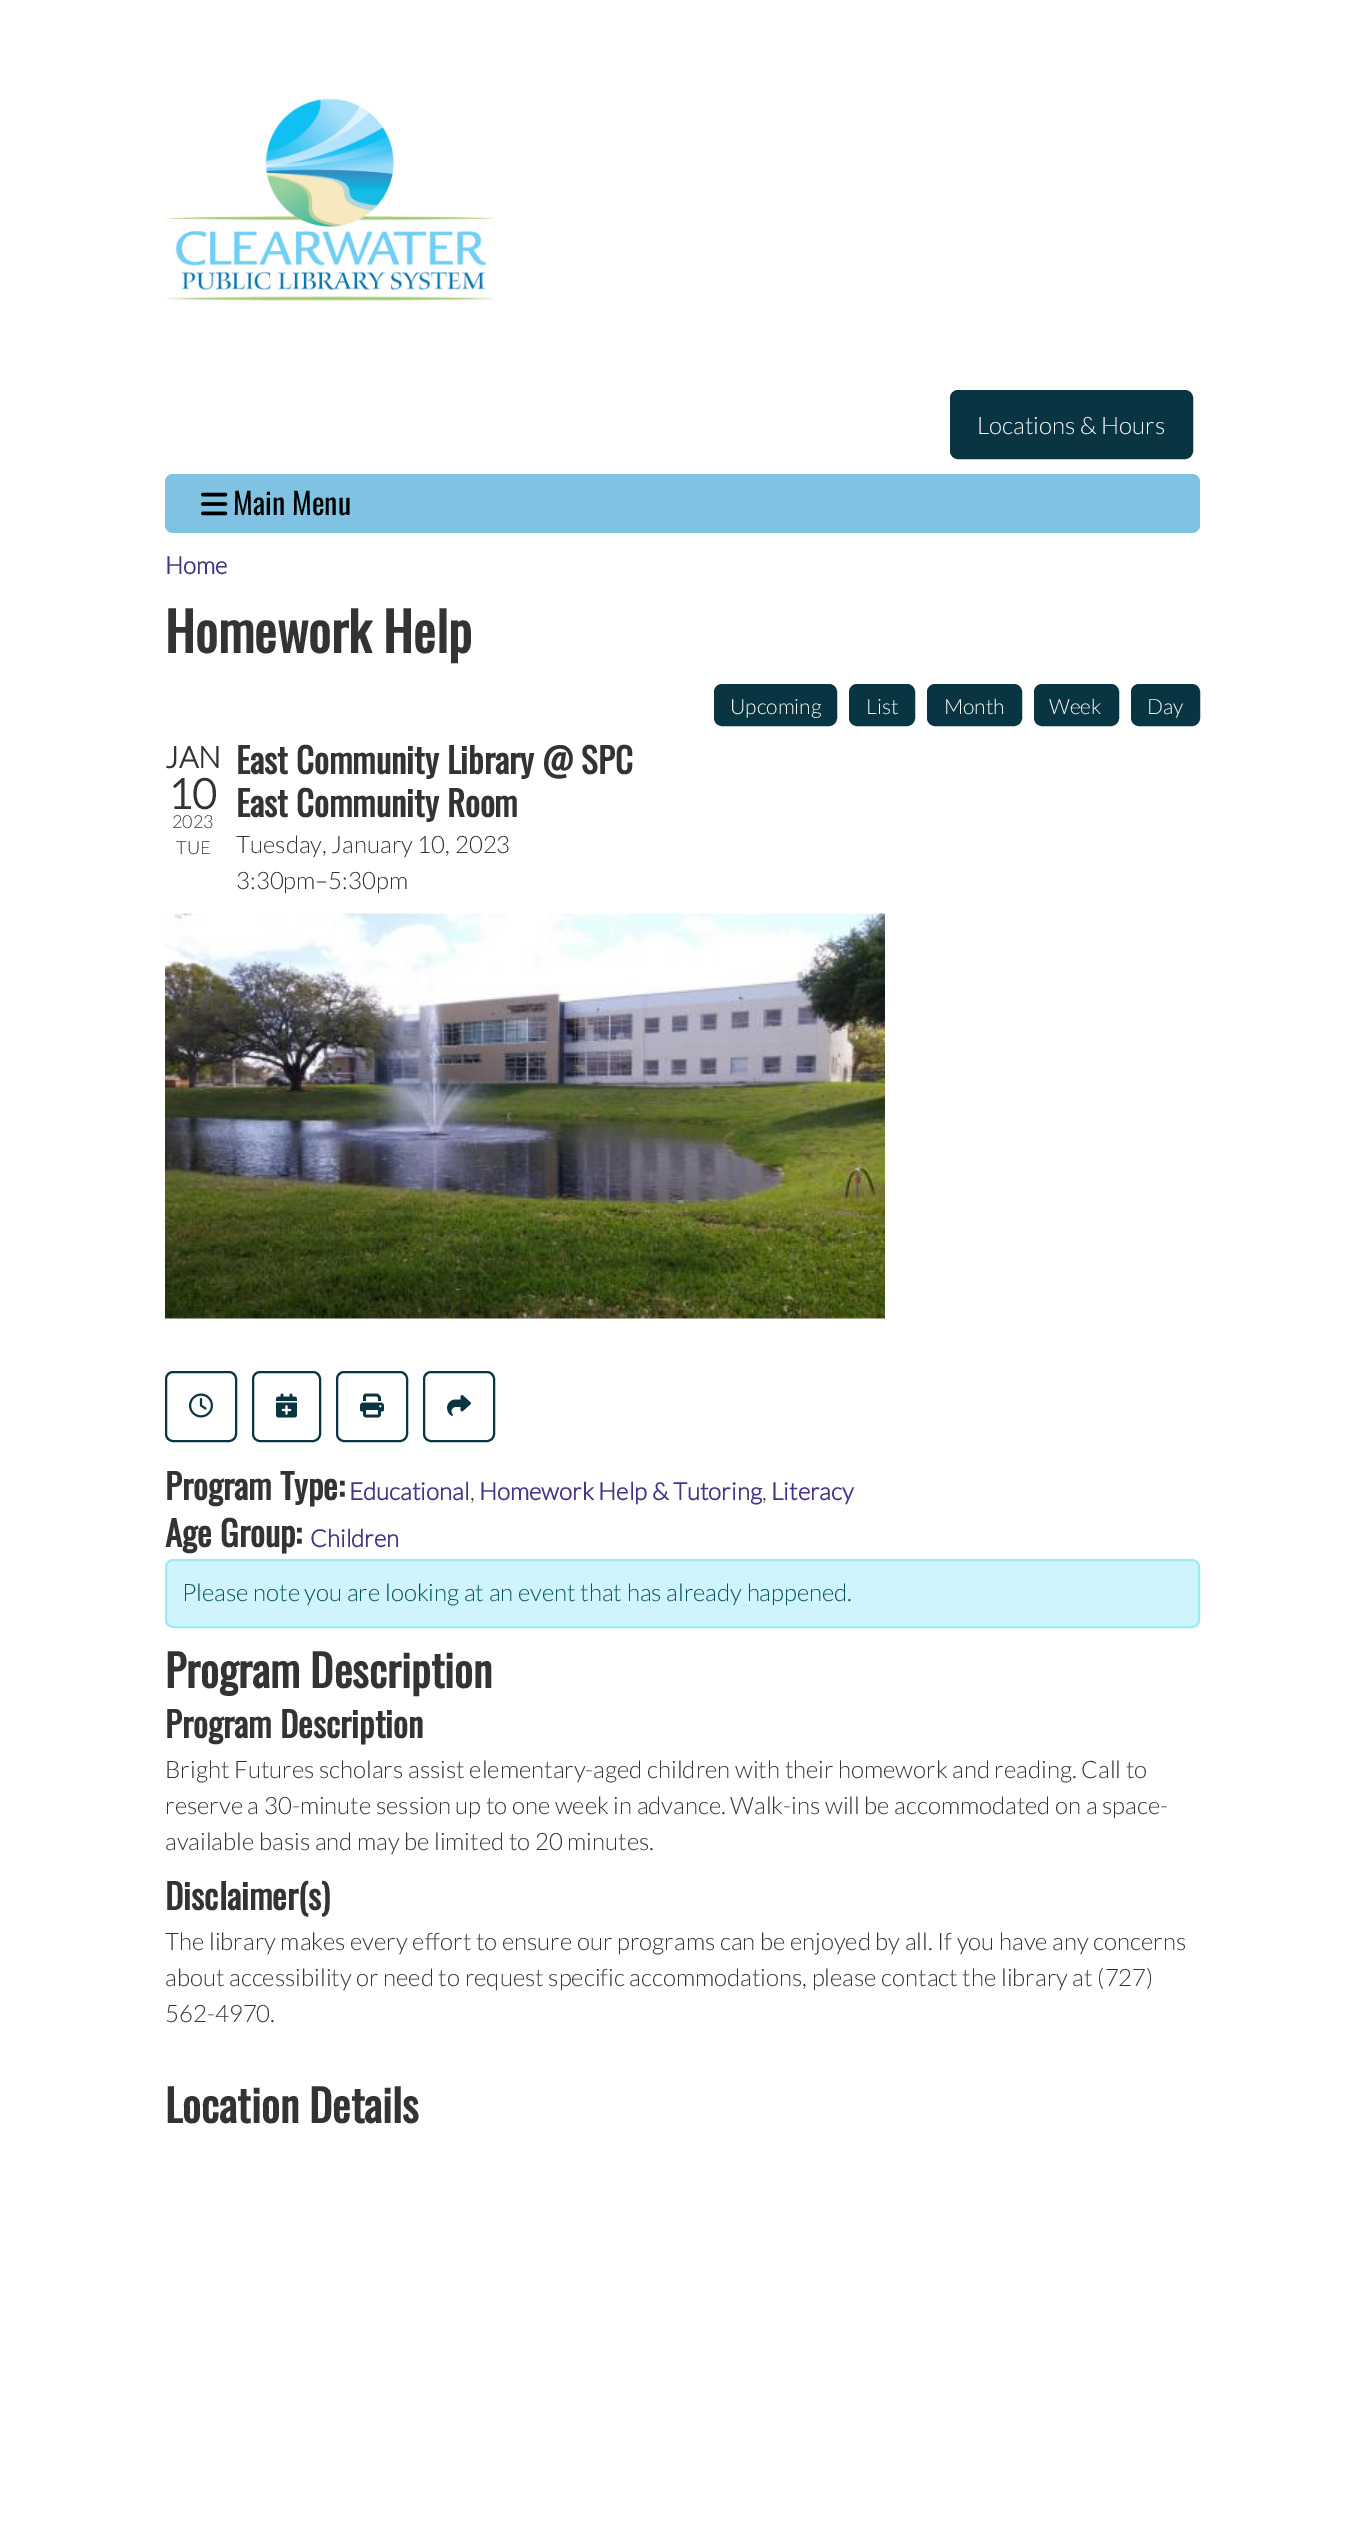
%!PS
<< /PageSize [1365 2538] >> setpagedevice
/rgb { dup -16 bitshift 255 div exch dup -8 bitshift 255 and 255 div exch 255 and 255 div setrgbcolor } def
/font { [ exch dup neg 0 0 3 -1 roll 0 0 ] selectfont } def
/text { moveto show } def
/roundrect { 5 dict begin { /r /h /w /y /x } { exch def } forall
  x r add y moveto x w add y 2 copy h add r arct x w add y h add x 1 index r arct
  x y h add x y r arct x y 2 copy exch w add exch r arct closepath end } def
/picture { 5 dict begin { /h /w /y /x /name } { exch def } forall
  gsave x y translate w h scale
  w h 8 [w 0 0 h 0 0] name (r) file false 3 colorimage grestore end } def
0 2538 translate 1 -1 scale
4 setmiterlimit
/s1 { /Lato-Light 24 font 16#FFFFFF rgb } def
/s2 { /Oswald-Regular 30 font 16#000000 rgb } def
/s3 { /Lato-Bold 24 font 16#463287 rgb } def
/s4 { /Oswald-Bold 53.5 font 16#333333 rgb } def
/s5 { /Lato-Light 21 font 16#FFFFFF rgb } def
/s6 { /Lato-Bold 30 font 16#333333 rgb } def
/s7 { /Lato-Bold 42 font 16#333333 rgb } def
/s8 { /Lato-Light 18 font 16#333333 rgb } def
/s9 { /Oswald-Bold 34.75 font 16#333333 rgb } def
/s10 { /Lato-Light 24 font 16#333333 rgb } def
/s11 { /Lato-Light 24 font 16#055160 rgb } def
/s12 { /Oswald-Bold 44 font 16#333333 rgb } def
16#FFFFFF rgb
0 0 1365 2538 rectfill
(pic1.raw) 165 98 330 203 picture
16#093543 rgb
951 391 241 67 7 roundrect gsave fill grestore
2 setlinewidth
stroke
s1
(Locations & Hours) 977 434 text
16#80C2E2 rgb
165 474 1035 59 8 roundrect fill
(pic2.raw) 201 492 27 24 picture
s2
(Main Menu) 233 515 text
s3
(Home) 165 574 text
s4
(Homework Help) 165 653 text
16#093543 rgb
715 685 121 40 7 roundrect gsave fill grestore
stroke
s5
(Upcoming) 730 714 text
16#093543 rgb
850 685 64 40 7 roundrect gsave fill grestore
stroke
s5
(List) 866 714 text
16#093543 rgb
928 685 93 40 7 roundrect gsave fill grestore
stroke
s5
(Month) 944 714 text
16#093543 rgb
1035 685 83 40 7 roundrect gsave fill grestore
stroke
s5
(Week) 1049 714 text
16#093543 rgb
1132 685 67 40 7 roundrect gsave fill grestore
stroke
s5
(Day) 1147 714 text
s6
(JAN) 165 768 text
s7
(10) 168 809 text
s8
(2023) 172 828 text
(TUE) 176 854 text
s9
(East Community Library @ SPC) 236 774 text
(East Community Room) 236 817 text
s10
(Tuesday, January 10, 2023) 236 853 text
(3:30pm–5:30pm) 236 889 text
(pic3.raw) 165 913 720 406 picture
16#093543 rgb
166 1372 70 69 7 roundrect stroke
(pic4.raw) 189 1393 24 25 picture
253 1372 67 69 7 roundrect stroke
(pic5.raw) 276 1393 21 25 picture
337 1372 70 69 7 roundrect stroke
(pic6.raw) 360 1393 24 25 picture
424 1372 70 69 7 roundrect stroke
(pic7.raw) 447 1395 24 21 picture
s9
(Program Type:) 165 1500 text
s3
(Educational) 349 1500 text
s10
(,) 470 1500 text
s3
(Homework Help & Tutoring) 479 1500 text
s10
(,) 762 1500 text
s3
(Literacy) 771 1500 text
s9
(Age Group:) 165 1547 text
s3
(Children) 310 1547 text
16#CFF4FC rgb
166 1560 1033 67 7 roundrect gsave fill grestore
16#9EEAF9 rgb
stroke
s11
(Please note you are looking at an event that has already happened.) 182 1601 text
s12
(Program Description) 165 1688 text
s9
(Program Description) 165 1738 text
s10
(Bright Futures scholars assist elementary-aged children with their homework and reading. Call to) 165 1778 text
(reserve a 30-minute session up to one week in advance. Walk-ins will be accommodated on a space-) 165 1814 text
(available basis and may be limited to 20 minutes.) 165 1850 text
s9
(Disclaimer\(s\)) 165 1910 text
s10
(The library makes every effort to ensure our programs can be enjoyed by all. If you have any concerns) 165 1950 text
(about accessibility or need to request specific accommodations, please contact the library at \(727\)) 165 1986 text
(562-4970.) 165 2022 text
s12
(Location Details) 165 2123 text
showpage
